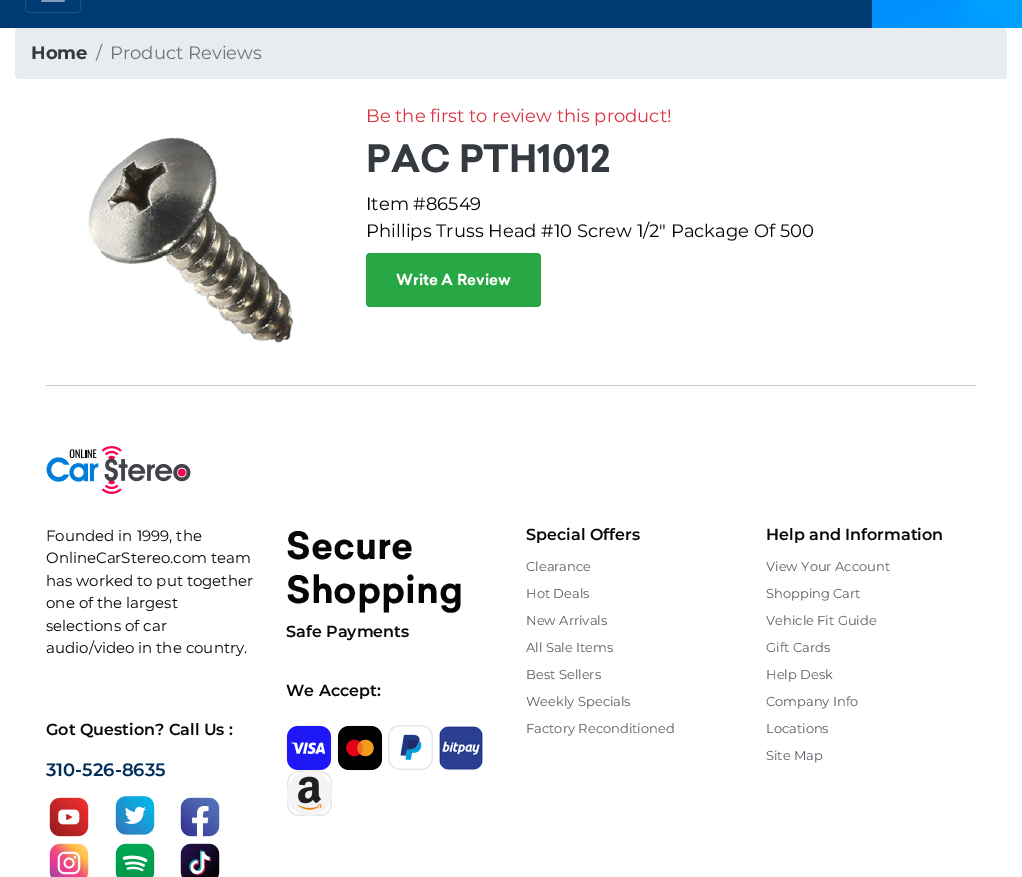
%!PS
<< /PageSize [1022 877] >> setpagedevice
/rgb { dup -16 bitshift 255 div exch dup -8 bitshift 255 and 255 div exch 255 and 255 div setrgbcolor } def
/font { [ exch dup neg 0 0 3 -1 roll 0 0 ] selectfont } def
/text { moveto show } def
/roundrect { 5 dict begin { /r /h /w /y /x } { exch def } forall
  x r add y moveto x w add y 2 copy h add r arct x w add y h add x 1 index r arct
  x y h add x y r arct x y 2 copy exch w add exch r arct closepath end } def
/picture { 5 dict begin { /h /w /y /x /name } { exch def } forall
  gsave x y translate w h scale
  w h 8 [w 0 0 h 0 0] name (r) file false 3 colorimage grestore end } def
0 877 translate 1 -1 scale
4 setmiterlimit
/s1 { /Montserrat-Bold 18 font 16#343A40 rgb } def
/s2 { /Montserrat-Regular 18 font 16#6C757D rgb } def
/s3 { /Montserrat-Regular 18 font 16#DC3545 rgb } def
/s4 { /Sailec-Bold 37 font 16#343A40 rgb } def
/s5 { /Montserrat-Regular 18 font 16#060606 rgb } def
/s6 { /Sailec-Bold 15 font 16#FFFFFF rgb } def
/s7 { /Montserrat-Regular 15 font 16#060606 rgb } def
/s8 { /Montserrat-SemiBold 16 font 16#060606 rgb } def
/s9 { /Montserrat-SemiBold 18 font 16#002D59 rgb } def
/s10 { /Sailec-Bold 37 font 16#060606 rgb } def
/s11 { /Montserrat-Regular 13 font 16#585E65 rgb } def
16#FFFFFF rgb
0 0 1022 877 rectfill
16#003A73 rgb
0 0 872 28 rectfill
16#1A4E81 rgb
25.5 -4.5 55 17 3.5 roundrect stroke
(pic1.raw) 41 0 24 2 picture
(pic2.raw) 872 0 150 28 picture
16#E9ECEF rgb
15 28 992 51 4 roundrect fill
s1
(Home) 31 59 text
s2
(/) 96 59 text
(Product Reviews) 110 59 text
(pic3.raw) 88 137 206 206 picture
s3
(Be the first to review this product!) 366 122 text
s4
(PAC PTH1012) 366 172 text
s5
(Item #86549) 366 210 text
(Phillips Truss Head #10 Screw 1/2" Package Of 500) 366 237 text
16#28A745 rgb
366 253 175 54 4 roundrect fill
s6
(Write A Review) 396 285 text
16#C6CACD rgb
46 385 930 1 rectfill
(pic4.raw) 46 446 145 48 picture
s7
(Founded in 1999, the) 46 541 text
(OnlineCarStereo.com team) 46 563 text
(has worked to put together) 46 586 text
(one of the largest) 46 608 text
(selections of car) 46 631 text
(audio/video in the country.) 46 653 text
s8
(Got Question? Call Us :) 46 735 text
s9
(310-526-8635) 46 776 text
(pic5.raw) 49 797 40 40 picture
(pic6.raw) 115 796 40 39 picture
(pic7.raw) 180 797 40 40 picture
(pic8.raw) 49 843 40 34 picture
(pic9.raw) 115 843 40 34 picture
(pic10.raw) 180 843 40 34 picture
s10
(Secure) 286 559 text
(Shopping) 286 603 text
s8
(Safe Payments) 286 637 text
(We Accept:) 286 696 text
(pic11.raw) 286 725 46 46 picture
(pic12.raw) 337 725 46 46 picture
(pic13.raw) 388 725 45 45 picture
(pic14.raw) 439 726 44 44 picture
(pic15.raw) 287 771 45 45 picture
(Special Offers) 526 540 text
s11
(Clearance) 526 571 text
(Hot Deals) 526 598 text
(New Arrivals) 526 625 text
(All Sale Items) 526 652 text
(Best Sellers) 526 679 text
(Weekly Specials) 526 706 text
(Factory Reconditioned) 526 733 text
s8
(Help and Information) 766 540 text
s11
(View Your Account) 766 571 text
(Shopping Cart) 766 598 text
(Vehicle Fit Guide) 766 625 text
(Gift Cards) 766 652 text
(Help Desk) 766 679 text
(Company Info) 766 706 text
(Locations) 766 733 text
(Site Map) 766 760 text
showpage
